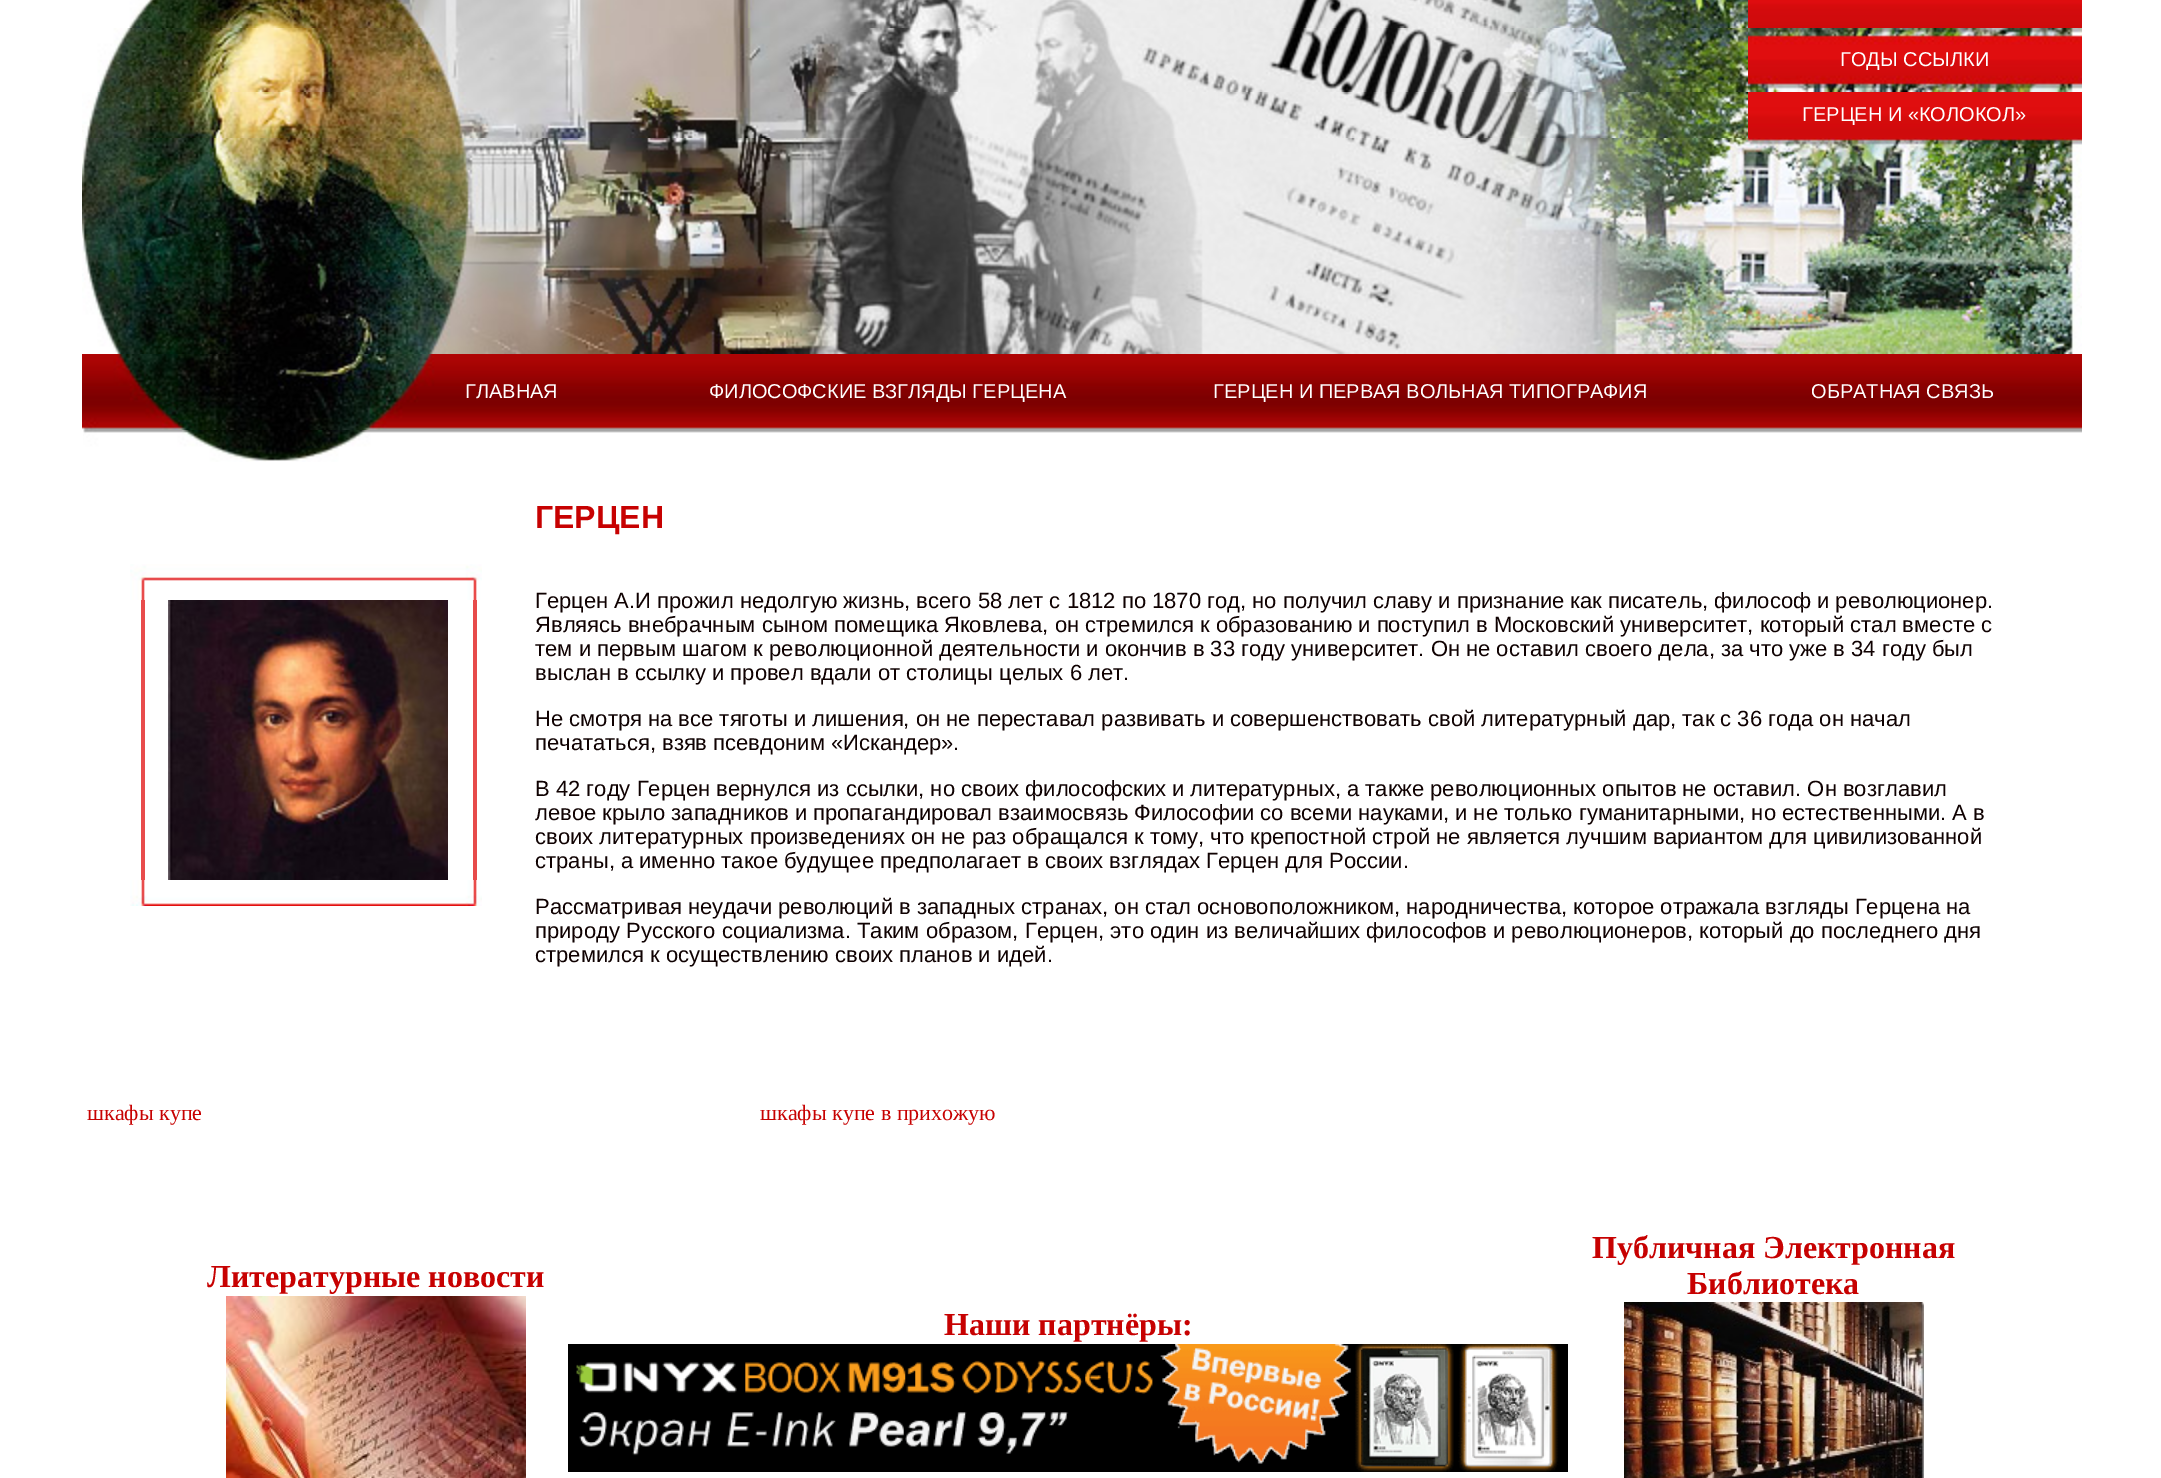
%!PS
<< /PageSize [2161 1478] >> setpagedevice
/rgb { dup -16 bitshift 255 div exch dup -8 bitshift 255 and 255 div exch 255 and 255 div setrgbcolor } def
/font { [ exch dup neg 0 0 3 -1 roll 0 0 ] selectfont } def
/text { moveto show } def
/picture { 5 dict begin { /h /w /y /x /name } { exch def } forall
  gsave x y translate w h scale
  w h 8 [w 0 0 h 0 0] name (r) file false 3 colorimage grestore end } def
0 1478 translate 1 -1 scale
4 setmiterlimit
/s1 { /LiberationSans-Regular 20 font 16#FFFFFF rgb } def
/s2 { /LiberationSans-Bold 32 font 16#C70101 rgb } def
/s3 { /LiberationSans-Regular 22 font 16#0F0101 rgb } def
/s4 { /LiberationSerif-Regular 22 font 16#C70101 rgb } def
/s5 { /LiberationSerif-Bold 32 font 16#C70101 rgb } def
16#FFFFFF rgb
0 0 2161 1478 rectfill
(pic1.raw) 129 0 1619 28 picture
(pic2.raw) 1748 0 334 28 picture
(pic3.raw) 97 28 1651 64 picture
(pic4.raw) 1748 28 334 64 picture
s1
(ГОДЫ ССЫЛКИ) 1840 66 text
(pic5.raw) 82 92 1666 46 picture
(pic6.raw) 1748 92 334 46 picture
(ГЕРЦЕН И «КОЛОКОЛ») 1802 121 text
(pic7.raw) 82 138 2000 216 picture
(pic8.raw) 82 354 384 76 picture
(pic9.raw) 466 354 244 76 picture
(ГЛАВНАЯ) 465 398 text
(pic10.raw) 710 354 504 76 picture
(ФИЛОСОФСКИЕ ВЗГЛЯДЫ ГЕРЦЕНА) 709 398 text
(pic11.raw) 1214 354 598 76 picture
(ГЕРЦЕН И ПЕРВАЯ ВОЛЬНАЯ ТИПОГРАФИЯ) 1213 398 text
(pic12.raw) 1812 354 270 76 picture
(ОБРАТНАЯ СВЯЗЬ) 1811 398 text
(pic13.raw) 83 430 1999 32 picture
s2
(ГЕРЦЕН) 535 528 text
(pic14.raw) 130 564 352 36 picture
16#E84C4C rgb
141 600 4 280 rectfill
(pic15.raw) 168 600 280 280 picture
16#E74B4A rgb
473 600 4 280 rectfill
(pic16.raw) 130 880 352 26 picture
s3
(Герцен А.И прожил недолгую жизнь, всего 58 лет с 1812 по 1870 год, но получил славу и признание как писатель, философ и революционер.) 535 608 text
(Являясь внебрачным сыном помещика Яковлева, он стремился к образованию и поступил в Московский университет, который стал вместе с) 535 632 text
(тем и первым шагом к революционной деятельности и окончив в 33 году университет. Он не оставил своего дела, за что уже в 34 году был) 535 656 text
(выслан в ссылку и провел вдали от столицы целых 6 лет.) 535 680 text
(Не смотря на все тяготы и лишения, он не переставал развивать и совершенствовать свой литературный дар, так с 36 года он начал) 535 726 text
(печататься, взяв псевдоним «Искандер».) 535 750 text
(В 42 году Герцен вернулся из ссылки, но своих философских и литературных, а также революционных опытов не оставил. Он возглавил) 535 796 text
(левое крыло западников и пропагандировал взаимосвязь Философии со всеми науками, и не только гуманитарными, но естественными. А в) 535 820 text
(своих литературных произведениях он не раз обращался к тому, что крепостной строй не является лучшим вариантом для цивилизованной) 535 844 text
(страны, а именно такое будущее предполагает в своих взглядах Герцен для России.) 535 868 text
(Рассматривая неудачи революций в западных странах, он стал основоположником, народничества, которое отражала взгляды Герцена на) 535 914 text
(природу Русского социализма. Таким образом, Герцен, это один из величайших философов и революционеров, который до последнего дня) 535 938 text
(стремился к осуществлению своих планов и идей.) 535 962 text
s4
(шкафы купе) 87 1120 text
(шкафы купе в прихожую) 760 1120 text
s5
(Литературные новости) 207 1287 text
(pic17.raw) 226 1296 300 182 picture
(Публичная Электронная) 1592 1258 text
(Библиотека) 1687 1294 text
(pic18.raw) 1624 1302 300 176 picture
(Наши партнёры:) 944 1335 text
(pic19.raw) 568 1344 1000 128 picture
showpage
